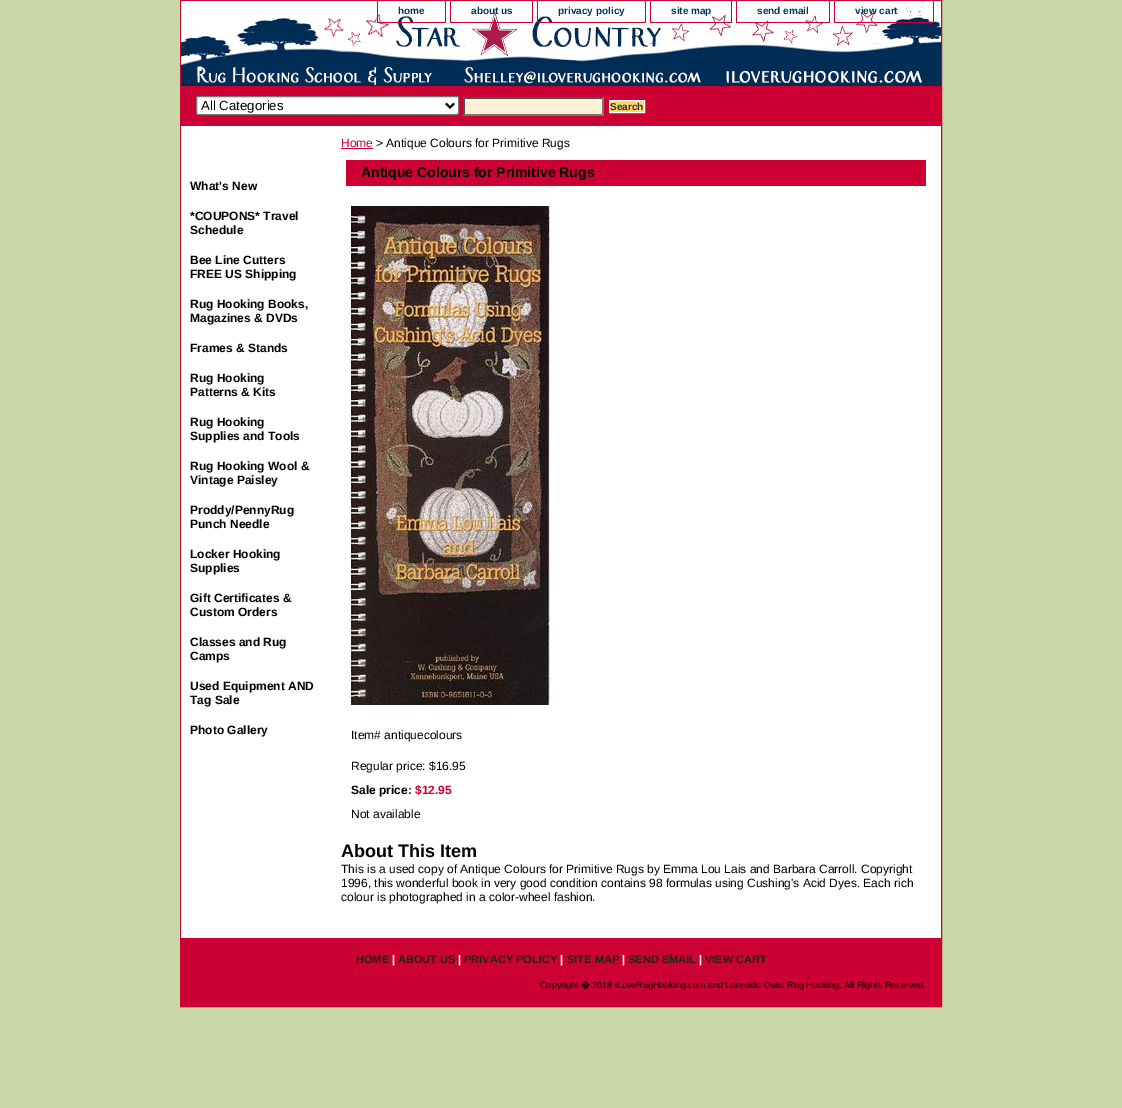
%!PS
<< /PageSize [1122 1108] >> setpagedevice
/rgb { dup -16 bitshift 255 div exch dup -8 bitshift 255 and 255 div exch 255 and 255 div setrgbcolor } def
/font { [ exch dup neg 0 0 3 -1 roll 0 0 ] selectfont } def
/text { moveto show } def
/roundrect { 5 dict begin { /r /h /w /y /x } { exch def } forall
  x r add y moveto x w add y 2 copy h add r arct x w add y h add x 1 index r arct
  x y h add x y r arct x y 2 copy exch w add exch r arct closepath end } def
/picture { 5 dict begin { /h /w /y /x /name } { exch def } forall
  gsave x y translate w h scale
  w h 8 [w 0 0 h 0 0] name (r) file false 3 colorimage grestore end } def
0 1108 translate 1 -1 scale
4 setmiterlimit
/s1 { /LiberationSans-Bold 10 font 16#003366 rgb } def
/s2 { /LiberationSans-Regular 42 font 16#FFFFFF rgb } def
/s3 { /LiberationSans-Regular 13.25 font 16#000000 rgb } def
/s4 { /LiberationSans-Bold 10 font 16#293413 rgb } def
/s5 { /LiberationSans-Bold 12 font 16#000000 rgb } def
/s6 { /LiberationSans-Regular 12 font 16#CC0033 rgb } def
/s7 { /LiberationSans-Regular 12 font 16#000000 rgb } def
/s8 { /LiberationSans-Bold 14 font 16#000000 rgb } def
/s9 { /LiberationSans-Bold 12 font 16#CC0033 rgb } def
/s10 { /LiberationSans-Bold 18 font 16#000000 rgb } def
/s11 { /LiberationSans-Bold 11 font 16#242411 rgb } def
/s12 { /LiberationSans-Bold 11 font 16#FFFFFF rgb } def
/s13 { /LiberationSans-Regular 9 font 16#000000 rgb } def
/s14 { /NotoSans-Regular 9 font 16#000000 rgb } def
16#CAD8A7 rgb
0 0 1122 1108 rectfill
16#CC0033 rgb
180.5 0.5 761 1006 rectstroke
16#FFFFFF rgb
181 1 760 10 rectfill
(pic1.raw) 181 11 760 75 picture
16#CC0033 rgb
445 1 1 22 rectfill
377 22 69 1 rectfill
377 1 1 22 rectfill
s1
(home) 398 14 text
16#CC0033 rgb
532 1 1 22 rectfill
450 22 83 1 rectfill
450 1 1 22 rectfill
s1
(about us) 471 14 text
16#CC0033 rgb
645 1 1 22 rectfill
537 22 109 1 rectfill
537 1 1 22 rectfill
s1
(privacy policy) 558 14 text
16#CC0033 rgb
731 1 1 22 rectfill
650 22 82 1 rectfill
650 1 1 22 rectfill
s1
(site map) 671 14 text
16#CC0033 rgb
829 1 1 22 rectfill
736 22 94 1 rectfill
736 1 1 22 rectfill
s1
(send email) 757 14 text
16#CC0033 rgb
933 1 1 22 rectfill
834 22 100 1 rectfill
834 1 1 22 rectfill
(pic2.raw) 905 1 19 15 picture
s1
(view cart) 855 14 text
s2
(.) 194 71 text
16#CC0033 rgb
181 86 760 40 rectfill
16#FFFFFF rgb
196.5 96.5 262 18 1.5 roundrect gsave fill grestore
16#767676 rgb
stroke
16#000000 rgb
2 setlinewidth
446 103.5 moveto 450 107.5 lineto 454 103.5 lineto stroke
s3
(All Categories) 201 110 text
16#FFF1D4 rgb
463 97 141 19 rectfill
16#4F4F4F rgb
463 97 moveto 604 97 lineto 602 99 lineto 465 99 lineto closepath fill
16#767676 rgb
604 97 moveto 604 116 lineto 602 114 lineto 602 99 lineto closepath fill
604 116 moveto 463 116 lineto 465 114 lineto 602 114 lineto closepath fill
16#4F4F4F rgb
463 116 moveto 463 97 lineto 465 99 lineto 465 114 lineto closepath fill
16#FED570 rgb
609.5 100.5 moveto 644.5 100.5 lineto 644.5 112.5 lineto 609.5 112.5 lineto closepath gsave fill grestore
16#FFFFFF rgb
1 setlinewidth
stroke
s4
(Search) 610 110 text
16#FFFFFF rgb
181 126 760 812 rectfill
16#FAFAFA rgb
214 144 1 1 rectfill
s5
(What's New) 190 190 text
(*COUPONS* Travel) 190 220 text
(Schedule) 190 234 text
(Bee Line Cutters) 190 264 text
(FREE US Shipping) 190 278 text
(Rug Hooking Books,) 190 308 text
(Magazines & DVDs) 190 322 text
(Frames & Stands) 190 352 text
(Rug Hooking) 190 382 text
(Patterns & Kits) 190 396 text
(Rug Hooking) 190 426 text
(Supplies and Tools) 190 440 text
(Rug Hooking Wool &) 190 470 text
(Vintage Paisley) 190 484 text
(Proddy/PennyRug) 190 514 text
(Punch Needle) 190 528 text
(Locker Hooking) 190 558 text
(Supplies) 190 572 text
(Gift Certificates &) 190 602 text
(Custom Orders) 190 616 text
(Classes and Rug) 190 646 text
(Camps) 190 660 text
(Used Equipment AND) 190 690 text
(Tag Sale) 190 704 text
(Photo Gallery) 190 734 text
s6
(Home) 341 147 text
341 148 32 1 rectfill
s7
(> Antique Colours for Primitive Rugs) 376 147 text
16#CC0033 rgb
346 160 580 26 rectfill
s8
(Antique Colours for Primitive Rugs) 361 177 text
(pic3.raw) 351 206 199 499 picture
s7
(Item# antiquecolours) 351 739 text
(Regular price: $16.95) 351 770 text
s5
(Sale price:) 351 794 text
s9
($12.95) 415 794 text
s7
(Not available) 351 818 text
s10
(About This Item) 341 857 text
s7
(This is a used copy of Antique Colours for Primitive Rugs by Emma Lou Lais and Barbara Carroll. Copyright) 341 873 text
(1996, this wonderful book in very good condition contains 98 formulas using Cushing's Acid Dyes. Each rich) 341 887 text
(colour is photographed in a color-wheel fashion.) 341 901 text
16#CC0033 rgb
181 938 760 68 rectfill
s11
(HOME) 356 963 text
s12
(|) 392 963 text
s11
(ABOUT US) 398 963 text
s12
(|) 458 963 text
s11
(PRIVACY POLICY) 464 963 text
s12
(|) 560 963 text
s11
(SITE MAP) 567 963 text
s12
(|) 622 963 text
s11
(SEND EMAIL) 628 963 text
s12
(|) 699 963 text
s11
(VIEW CART) 705 963 text
s13
(Copyright) 540 988 text
s14
(�) 581 988 text
s13
(2018 iLoveRugHooking.com and Lakeside Oaks Rug Hooking. All Rights Reserved.) 592 988 text
showpage
